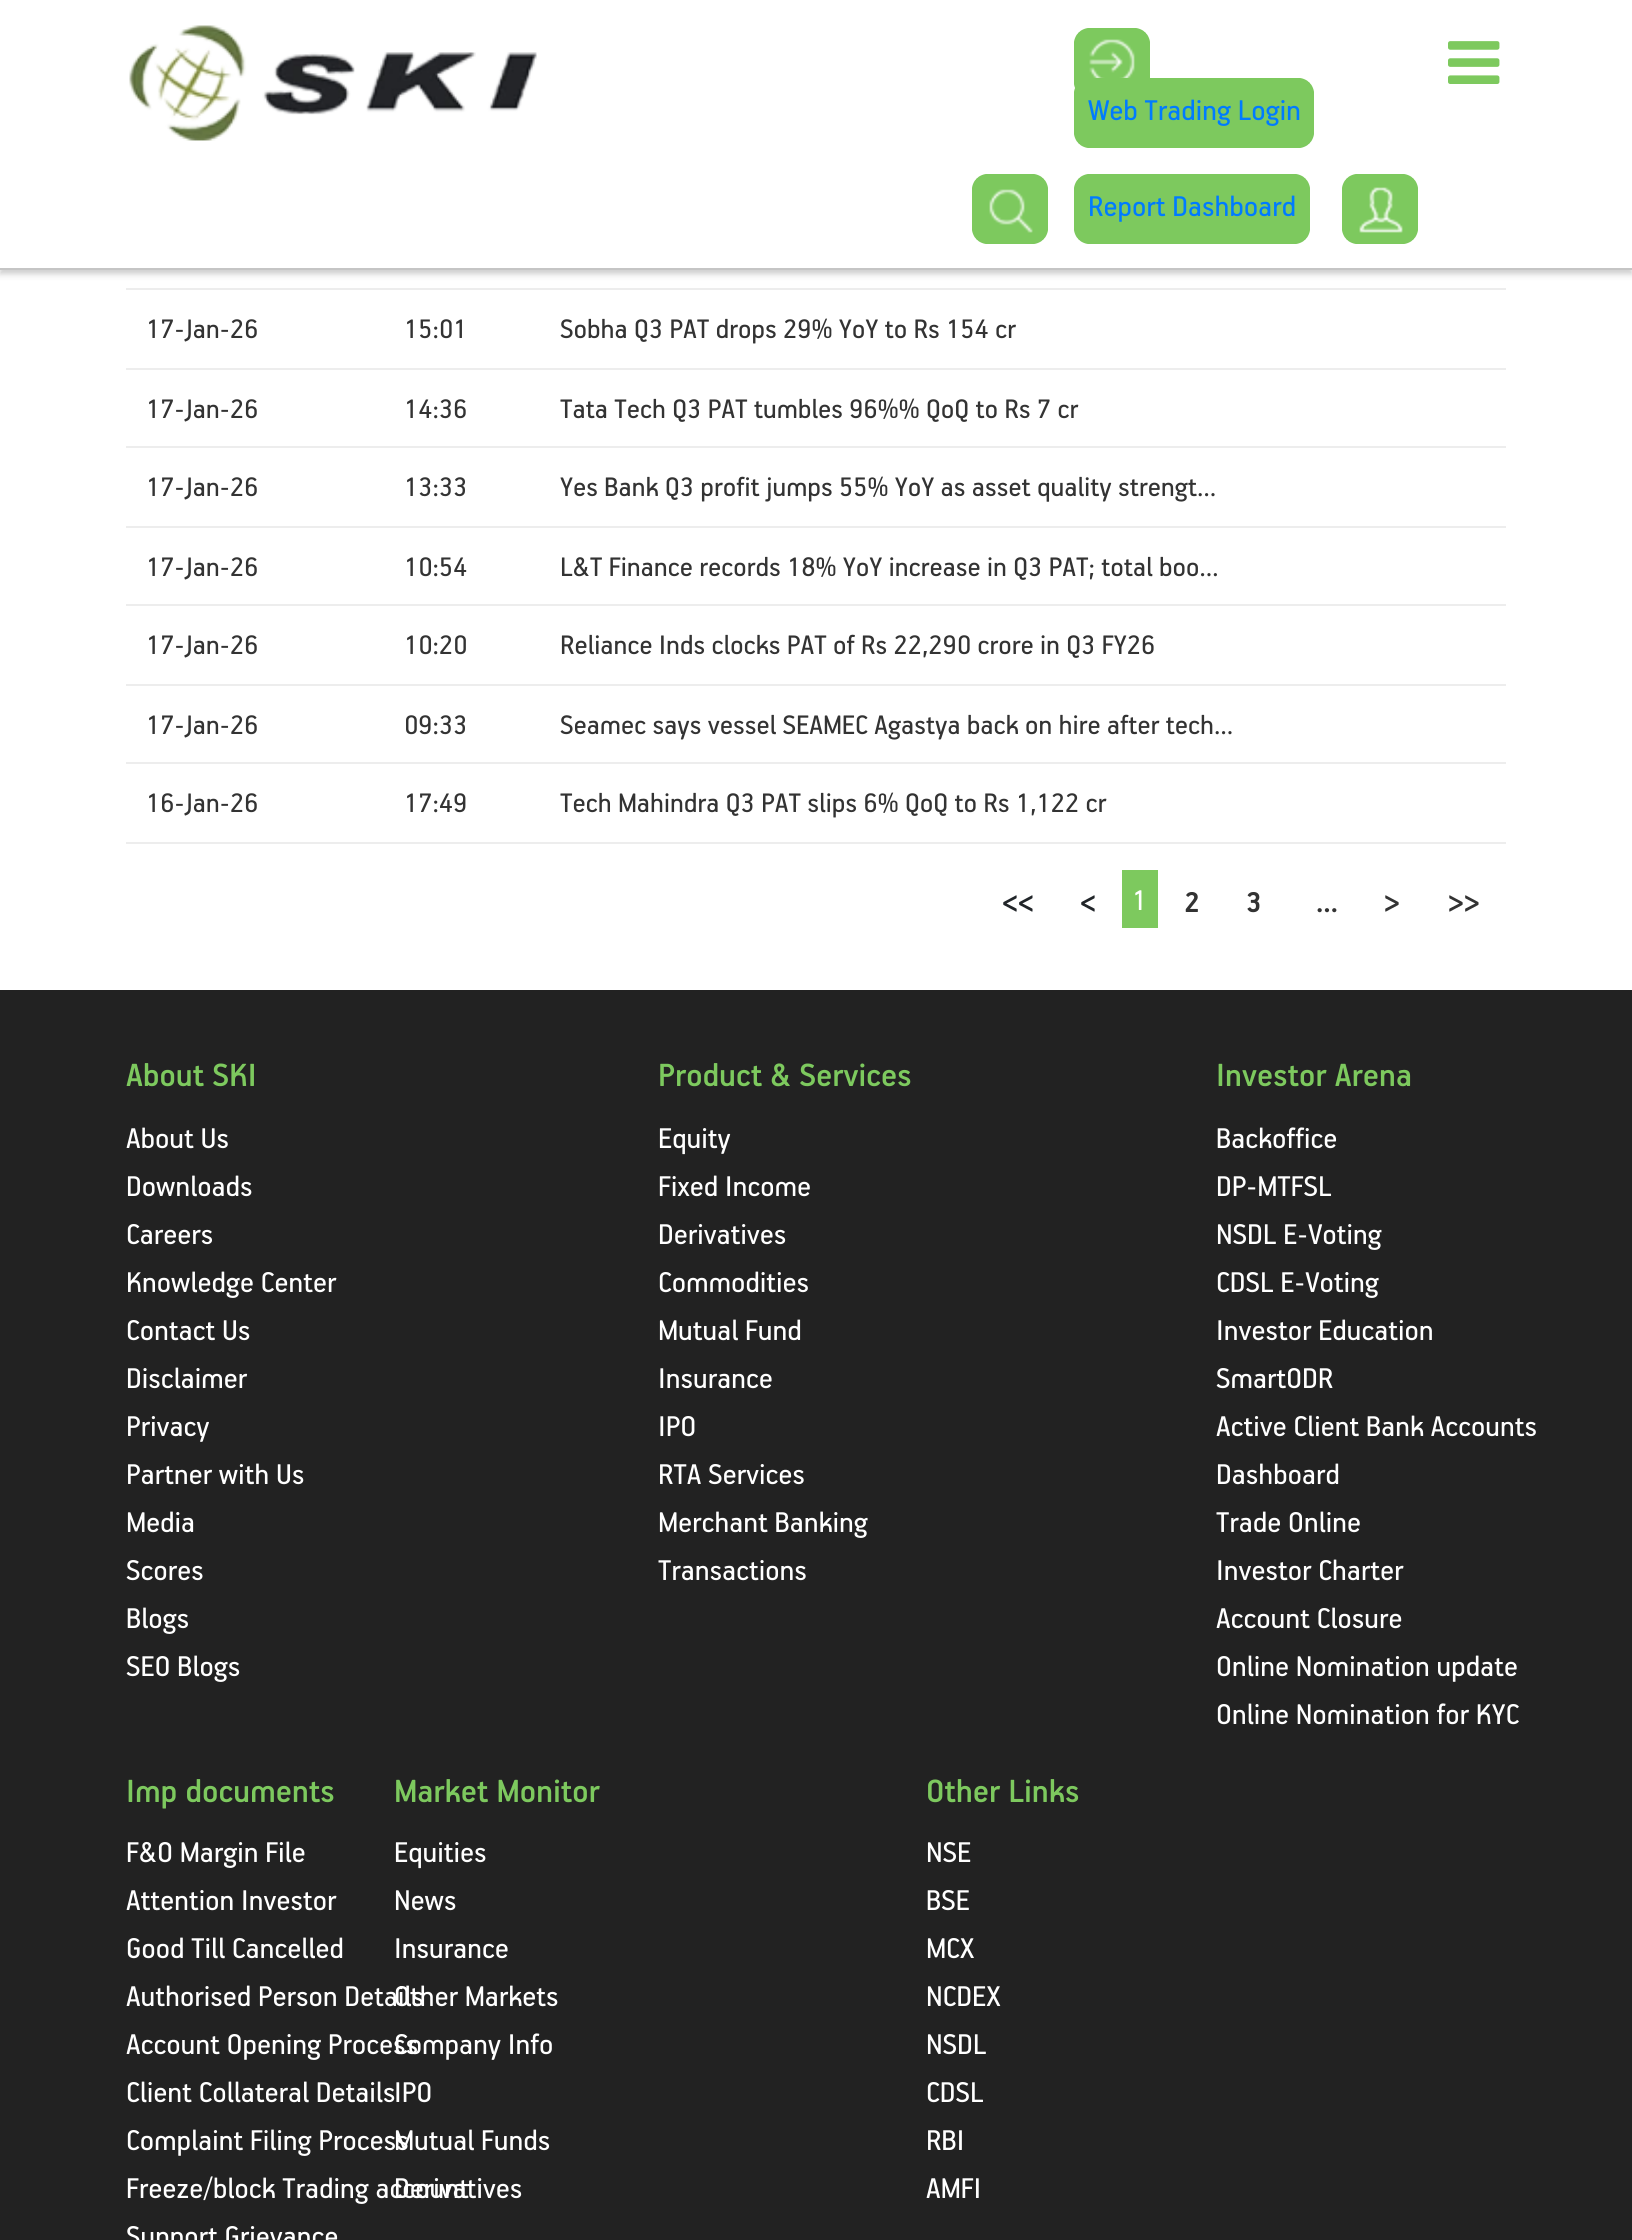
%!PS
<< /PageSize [1632 2240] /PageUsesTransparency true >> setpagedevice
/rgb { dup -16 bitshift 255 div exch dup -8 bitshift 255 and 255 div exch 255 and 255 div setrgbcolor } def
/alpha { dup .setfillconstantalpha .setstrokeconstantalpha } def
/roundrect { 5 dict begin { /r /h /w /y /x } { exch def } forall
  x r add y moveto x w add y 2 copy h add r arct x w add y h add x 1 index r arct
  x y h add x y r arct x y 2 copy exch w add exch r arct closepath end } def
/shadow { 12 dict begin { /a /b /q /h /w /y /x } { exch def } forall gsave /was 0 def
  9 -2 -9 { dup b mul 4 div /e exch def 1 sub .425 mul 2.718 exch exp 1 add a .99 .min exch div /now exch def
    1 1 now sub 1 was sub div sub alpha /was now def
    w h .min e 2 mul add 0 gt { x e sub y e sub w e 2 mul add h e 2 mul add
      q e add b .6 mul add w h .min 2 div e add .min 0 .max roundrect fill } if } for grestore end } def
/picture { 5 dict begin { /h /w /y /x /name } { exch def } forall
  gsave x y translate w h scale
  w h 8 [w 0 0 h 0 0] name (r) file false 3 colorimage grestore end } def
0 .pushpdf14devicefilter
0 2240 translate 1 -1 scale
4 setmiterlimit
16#FFFFFF rgb
0 0 1632 2240 rectfill
16#CCCCCC rgb
0 4 1632 270 0 3 1 shadow
16#FFFFFF rgb
0 0 1632 268 rectfill
16#C5C5C5 rgb
0 268 1632 2 rectfill
(pic1.raw) 129 25 408 116 picture
16#7DC95E rgb
972 174 76 70 16 roundrect fill
(pic2.raw) 989 189 44 44 picture
1074 28 76 70 16 roundrect fill
(pic3.raw) 1089 39 46 39 picture
1074 78 240 70 16 roundrect fill
(pic4.raw) 1088 99 212 27 picture
1074 174 236 70 16 roundrect fill
(pic5.raw) 1090 195 205 27 picture
1342 174 76 70 16 roundrect fill
(pic6.raw) 1359 187 44 46 picture
(pic7.raw) 1448 41 52 43 picture
16#EDEDED rgb
126 288 1380 2 rectfill
(pic8.raw) 560 318 456 26 picture
126 368 1380 2 rectfill
(pic9.raw) 149 319 108 23 picture
(pic10.raw) 407 319 55 20 picture
(pic11.raw) 560 398 519 24 picture
126 446 1380 2 rectfill
(pic9.raw) 149 399 108 23 picture
(pic12.raw) 407 399 59 20 picture
(pic13.raw) 560 476 655 26 picture
126 526 1380 2 rectfill
(pic9.raw) 149 477 108 23 picture
(pic14.raw) 407 477 58 20 picture
(pic15.raw) 561 556 656 24 picture
126 604 1380 2 rectfill
(pic9.raw) 149 557 108 23 picture
(pic16.raw) 407 557 60 20 picture
(pic17.raw) 561 634 593 24 picture
126 684 1380 2 rectfill
(pic9.raw) 149 635 108 23 picture
(pic18.raw) 407 635 59 20 picture
(pic19.raw) 560 714 672 26 picture
126 762 1380 2 rectfill
(pic9.raw) 149 715 108 23 picture
(pic20.raw) 406 715 59 20 picture
(pic21.raw) 560 792 547 26 picture
126 842 1380 2 rectfill
(pic22.raw) 149 793 108 23 picture
(pic23.raw) 407 793 59 20 picture
16#7DC95E rgb
1122 870 36 58 rectfill
(pic24.raw) 1003 895 30 17 picture
(pic25.raw) 1081 895 14 17 picture
(pic26.raw) 1135 890 7 20 picture
(pic27.raw) 1185 892 13 20 picture
(pic28.raw) 1247 892 13 21 picture
(pic29.raw) 1317 908 20 5 picture
(pic30.raw) 1385 895 14 17 picture
(pic31.raw) 1449 895 30 17 picture
16#222222 rgb
0 990 1632 1250 rectfill
(pic32.raw) 126 1063 128 24 picture
(pic33.raw) 126 1127 102 22 picture
(pic34.raw) 127 1175 125 22 picture
(pic35.raw) 127 1224 85 21 picture
(pic36.raw) 128 1271 209 27 picture
(pic37.raw) 127 1320 123 21 picture
(pic38.raw) 127 1367 121 22 picture
(pic39.raw) 128 1416 81 26 picture
(pic40.raw) 128 1463 176 22 picture
(pic41.raw) 127 1511 67 22 picture
(pic42.raw) 126 1560 77 21 picture
(pic43.raw) 127 1607 61 27 picture
(pic44.raw) 126 1655 114 27 picture
(pic45.raw) 660 1063 251 24 picture
(pic46.raw) 659 1128 72 27 picture
(pic47.raw) 659 1175 151 22 picture
(pic48.raw) 659 1224 127 21 picture
(pic49.raw) 659 1271 149 22 picture
(pic50.raw) 659 1319 142 22 picture
(pic51.raw) 660 1368 112 21 picture
(pic52.raw) 660 1416 35 21 picture
(pic53.raw) 660 1464 144 21 picture
(pic54.raw) 659 1511 209 27 picture
(pic55.raw) 658 1560 148 21 picture
(pic56.raw) 1218 1063 193 24 picture
(pic57.raw) 1217 1127 120 22 picture
(pic58.raw) 1217 1176 115 21 picture
(pic59.raw) 1217 1224 165 26 picture
(pic60.raw) 1217 1272 162 26 picture
(pic61.raw) 1218 1319 214 22 picture
(pic62.raw) 1216 1368 117 21 picture
(pic63.raw) 1216 1415 320 22 picture
(pic64.raw) 1217 1463 122 22 picture
(pic65.raw) 1216 1511 144 22 picture
(pic66.raw) 1218 1559 186 22 picture
(pic67.raw) 1216 1607 186 22 picture
(pic68.raw) 1217 1655 300 27 picture
(pic69.raw) 1217 1703 302 22 picture
(pic70.raw) 128 1779 206 30 picture
(pic71.raw) 127 1841 178 27 picture
(pic72.raw) 126 1890 211 21 picture
(pic73.raw) 127 1937 216 22 picture
(pic74.raw) 126 1985 296 22 picture
(pic75.raw) 126 2034 291 26 picture
(pic76.raw) 127 2081 268 22 picture
(pic77.raw) 127 2129 281 27 picture
(pic78.raw) 127 2176 342 28 picture
(pic79.raw) 127 2226 211 14 picture
(pic80.raw) 396 1779 204 24 picture
(pic81.raw) 395 1842 91 27 picture
(pic82.raw) 395 1890 61 21 picture
(pic51.raw) 396 1938 112 21 picture
(pic83.raw) 395 1985 163 22 picture
(pic84.raw) 395 2033 157 27 picture
(pic52.raw) 396 2082 35 21 picture
(pic85.raw) 395 2129 155 22 picture
(pic86.raw) 395 2178 127 21 picture
(pic87.raw) 928 1779 151 24 picture
(pic88.raw) 927 1842 44 21 picture
(pic89.raw) 927 1890 42 21 picture
(pic90.raw) 927 1938 47 21 picture
(pic91.raw) 927 1986 74 21 picture
(pic92.raw) 927 2034 59 21 picture
(pic93.raw) 927 2082 56 21 picture
(pic94.raw) 928 2130 34 20 picture
(pic95.raw) 926 2178 53 20 picture
.poppdf14devicefilter showpage
